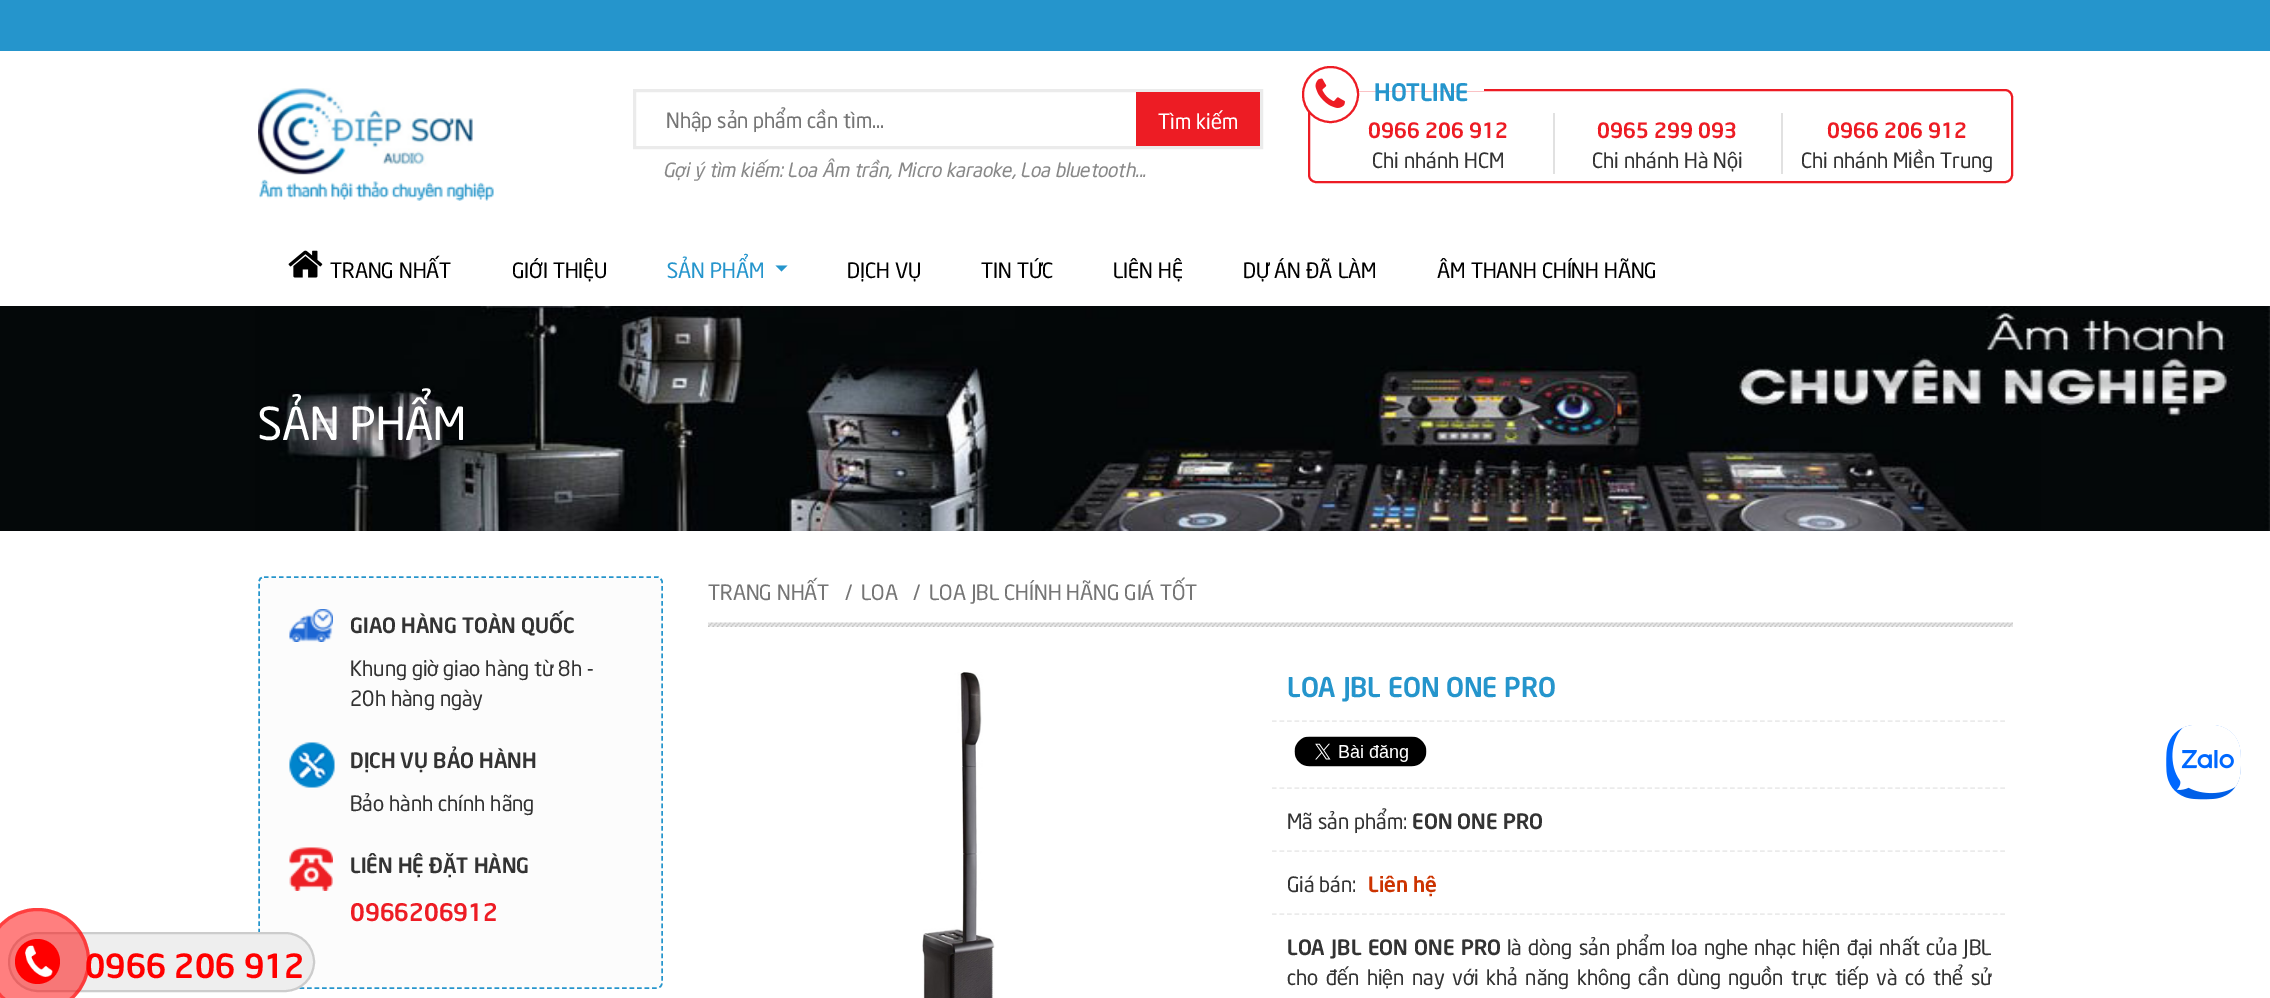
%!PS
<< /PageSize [2270 998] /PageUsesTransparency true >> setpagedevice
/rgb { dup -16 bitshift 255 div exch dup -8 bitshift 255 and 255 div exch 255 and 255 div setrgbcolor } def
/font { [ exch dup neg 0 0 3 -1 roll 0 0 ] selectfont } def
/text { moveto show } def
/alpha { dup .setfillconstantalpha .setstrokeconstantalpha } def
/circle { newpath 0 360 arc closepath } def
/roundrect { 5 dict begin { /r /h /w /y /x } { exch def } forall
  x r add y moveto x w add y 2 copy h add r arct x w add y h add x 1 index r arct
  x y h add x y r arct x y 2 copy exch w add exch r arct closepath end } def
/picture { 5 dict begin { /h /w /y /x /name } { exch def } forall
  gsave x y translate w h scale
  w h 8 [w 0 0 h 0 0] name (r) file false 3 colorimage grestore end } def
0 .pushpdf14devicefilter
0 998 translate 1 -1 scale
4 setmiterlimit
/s1 { /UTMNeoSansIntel-Regular 21 font 16#757575 rgb } def
/s2 { /UTMNeoSansIntel-Regular 21 font 16#FFFFFF rgb } def
/s3 { /UTMNeoSansIntel-Italic 19.5 font 16#888888 rgb } def
/s4 { /UTMNeoSansIntel-Bold 24 font 16#2595CC rgb } def
/s5 { /UTMNeoSansIntel-Bold 21 font 16#ED1C24 rgb } def
/s6 { /UTMNeoSansIntel-Regular 21 font 16#333333 rgb } def
/s7 { /UTMNeoSansIntel-Regular 21 font 16#000000 rgb } def
/s8 { /UTMNeoSansIntel-Regular 21 font 16#2595CC rgb } def
/s9 { /UTMNeoSansIntel-Regular 45 font 16#FFFFFF rgb } def
/s10 { /UTMNeoSansIntel-Bold 33 font 16#FF0000 rgb } def
/s11 { /UTMNeoSansIntel-Bold 21 font 16#333333 rgb } def
/s12 { /UTMNeoSansIntel-Bold 24 font 16#ED1C24 rgb } def
/s13 { /UTMNeoSansIntel-Bold 27 font 16#2595CC rgb } def
/s14 { /UTMNeoSansIntel-Bold 21 font 16#CC3300 rgb } def
16#FFFFFF rgb
0 0 2270 998 rectfill
16#2595CC rgb
0 0 2270 51 rectfill
(pic1.raw) 258 88 236 113 picture
16#EBEBEB rgb
3 setlinewidth
634.5 90.5 627 57 rectstroke
s1
(Nhập sản phẩm cần tìm...) 666 128 text
16#ED1C24 rgb
1136 92 124 54 rectfill
s2
(Tìm kiếm) 1158 129 text
s3
(Gợi ý tìm kiếm: Loa Âm trần, Micro karaoke, Loa bluetooth...) 663 177 text
16#ED1C24 rgb
2 setlinewidth
1309 90 703 92 7 roundrect stroke
16#FFFFFF rgb
1330.5 94.5 27.5 circle gsave fill grestore
16#ED1C24 rgb
stroke
(pic2.raw) 1315 78 30 30 picture
16#FFFFFF rgb
1359 89 125 2 rectfill
s4
(HOTLINE) 1374 101 text
16#E1E1E1 rgb
1553 113 2 61 rectfill
s5
(0966 206 912) 1368 138 text
s6
(Chi nhánh HCM) 1372 168 text
16#E1E1E1 rgb
1781 113 2 61 rectfill
s5
(0965 299 093) 1597 138 text
s6
(Chi nhánh Hà Nội) 1592 168 text
s5
(0966 206 912) 1827 138 text
s6
(Chi nhánh Miền Trung) 1801 168 text
(pic3.raw) 288 250 35 28 picture
s7
(TRANG NHẤT) 330 278 text
(GIỚI THIỆU) 512 278 text
s8
(SẢN PHẨM) 667 278 text
775.5 265.5 moveto 787.5 265.5 lineto 781.5 271.5 lineto closepath fill
s7
(DỊCH VỤ) 847 278 text
(TIN TỨC) 981 278 text
(LIÊN HỆ) 1113 278 text
(DỰ ÁN ĐÃ LÀM) 1243 278 text
(ÂM THANH CHÍNH HÃNG) 1437 278 text
(pic4.raw) 0 306 2270 225 picture
s9
(SẢN PHẨM) 258 440 text
16#FCFCFC rgb
258 576 405 413 6 roundrect fill
16#2595CC rgb
1.5 setlinewidth
[4.5 3] 0 setdash
264 577 moveto 657 577 lineto 660 577 662 579 662 582 curveto 662 982.5 lineto 662 985.5 660 988 657 988 curveto 264 988 lineto 261 988 259 985.5 259 982.5 curveto 259 582 lineto 259 579 261 577 264 577 curveto closepath stroke
16#EEEEEE rgb
9 933 305 58 29 roundrect gsave fill grestore
16#CCCCCC rgb
2 setlinewidth
[] 0 setdash
stroke
s10
(0966 206 912) 85 978 text
0.5 alpha
37.5 960.5 52.5 circle fill
3 setlinewidth
37.5 960.5 51 circle stroke
1 alpha
37.5 961.5 22.5 circle fill
(pic5.raw) 25 945 28 32 picture
(pic6.raw) 289 609 44 33 picture
s11
(GIAO HÀNG TOÀN QUỐC) 350 633 text
s6
(Khung giờ giao hàng từ 8h -) 350 676 text
(20h hàng ngày) 350 706 text
(pic7.raw) 289 742 46 46 picture
s11
(DỊCH VỤ BẢO HÀNH) 350 768 text
s6
(Bảo hành chính hãng) 350 811 text
(pic8.raw) 289 847 44 44 picture
s11
(LIÊN HỆ ĐẶT HÀNG) 350 873 text
s12
(0966206912) 350 921 text
s1
(TRANG NHẤT) 708 600 text
(/) 845 600 text
(LOA) 861 600 text
(/) 913 600 text
(LOA JBL CHÍNH HÃNG GIÁ TỐT) 929 600 text
(pic9.raw) 708 622 1305 5 picture
(pic10.raw) 922 672 73 326 picture
16#EBEBEB rgb
1.5 setlinewidth
[4.5 3.01] 0 setdash
1272 721 moveto 2005.5 721 lineto stroke
s13
(LOA JBL EON ONE PRO) 1287 697 text
16#EBEBEB rgb
1272 788 moveto 2005.5 788 lineto stroke
(pic11.raw) 1294 736 133 31 picture
1272 851 moveto 2005.5 851 lineto stroke
s6
(Mã sản phẩm:) 1287 829 text
s11
(EON ONE PRO) 1412 829 text
16#EBEBEB rgb
1272 914 moveto 2005.5 914 lineto stroke
s6
(Giá bán:) 1287 892 text
s14
(Liên hệ) 1368 892 text
16#333333 rgb
1287 955 moveto 1.25 0 32 (LOA JBL EON ONE PRO) widthshow
/UTMNeoSansIntel-Regular 21 font
1507 955 moveto 1.25 0 32 (là dòng sản phẩm loa nghe nhạc hiện đại nhất của JBL) widthshow
1287 985 moveto 2.4 0 32 (cho đến hiện nay với khả năng không cần dùng nguồn trực tiếp và có thể sử) widthshow
(pic12.raw) 2166 725 75 75 picture
.poppdf14devicefilter showpage
